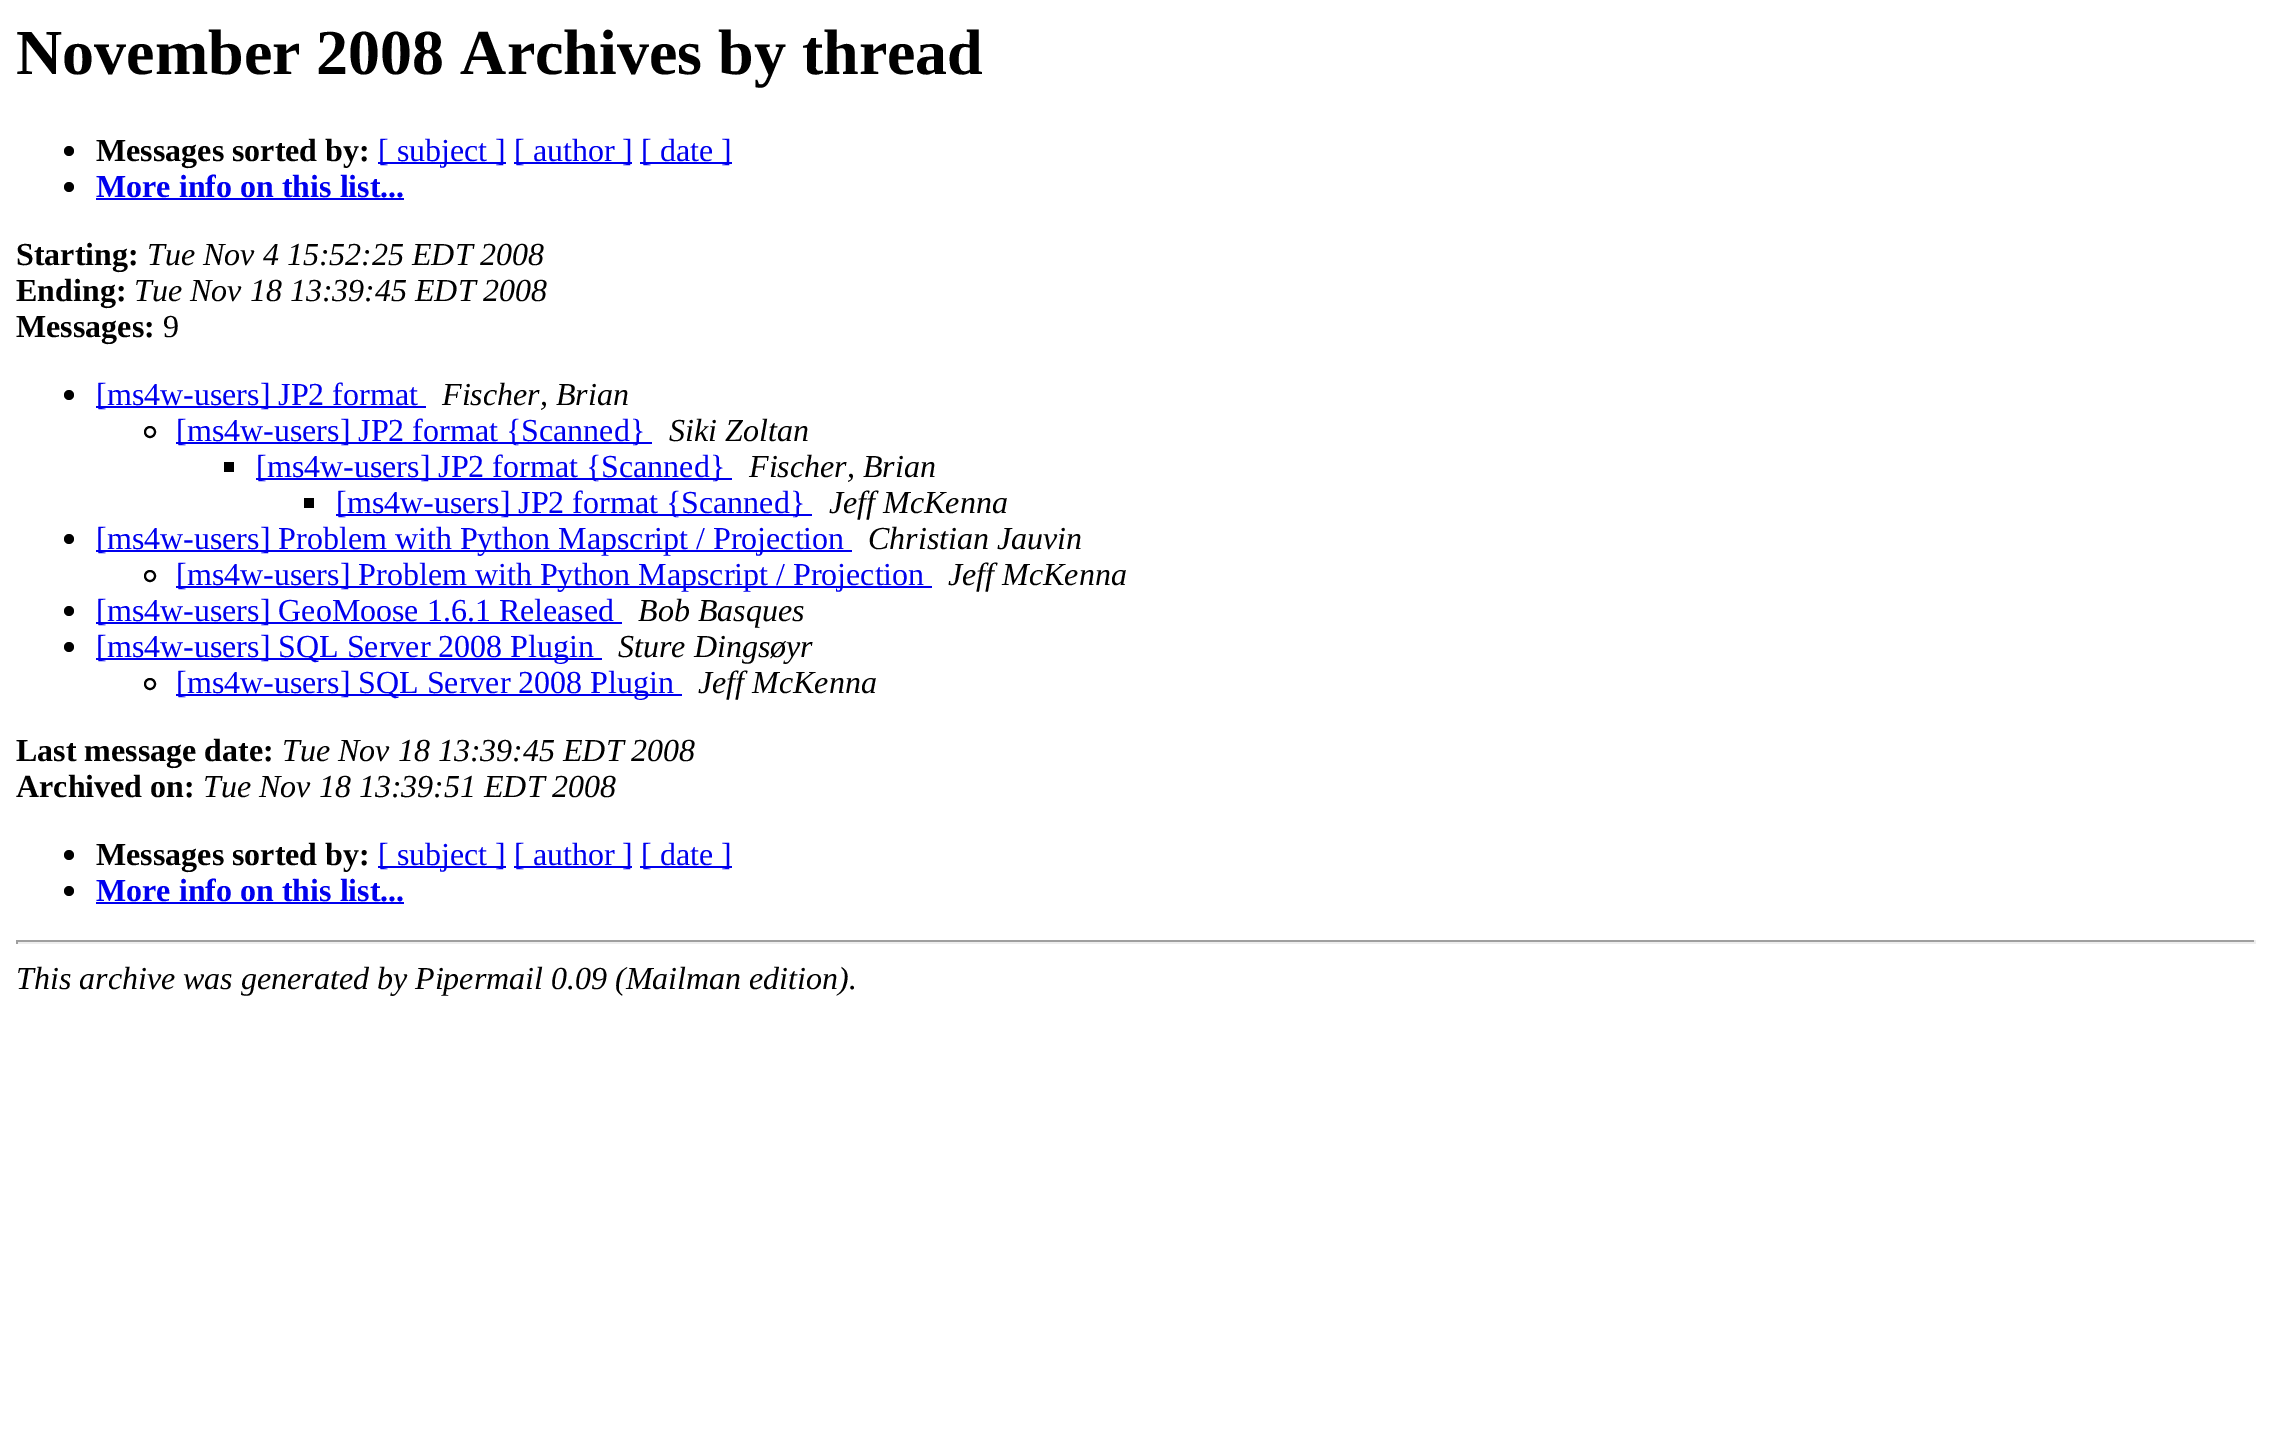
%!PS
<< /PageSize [2271 1453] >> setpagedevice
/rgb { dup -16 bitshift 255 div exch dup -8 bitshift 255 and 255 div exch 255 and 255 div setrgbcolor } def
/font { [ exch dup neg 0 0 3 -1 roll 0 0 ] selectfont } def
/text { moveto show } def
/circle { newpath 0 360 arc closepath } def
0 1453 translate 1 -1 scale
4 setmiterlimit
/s1 { /LiberationSerif-Bold 64 font 16#000000 rgb } def
/s2 { /LiberationSerif-Bold 32 font 16#000000 rgb } def
/s3 { /LiberationSerif-Regular 32 font 16#0000EE rgb } def
/s4 { /LiberationSerif-Bold 32 font 16#0000EE rgb } def
/s5 { /LiberationSerif-Italic 32 font 16#000000 rgb } def
/s6 { /LiberationSerif-Regular 32 font 16#000000 rgb } def
16#FFFFFF rgb
0 0 2271 1453 rectfill
s1
(November 2008 Archives by thread) 16 74 text
69 151 5 circle fill
s2
(Messages sorted by:) 96 161 text
16#0000EE rgb
378 162 128 2 rectfill
s3
([ subject ]) 378 161 text
514 162 118 2 rectfill
([ author ]) 514 161 text
640 162 92 2 rectfill
([ date ]) 641 161 text
16#000000 rgb
69 187 5 circle fill
s4
(More info on this list...) 96 197 text
96 198 308 2 rectfill
s2
(Starting:) 16 265 text
s5
(Tue Nov 4 15:52:25 EDT 2008) 147 265 text
s2
(Ending:) 16 301 text
s5
(Tue Nov 18 13:39:45 EDT 2008) 134 301 text
s2
(Messages:) 16 337 text
s6
(9) 163 337 text
69 395 5 circle fill
16#0000EE rgb
96 406 330 2 rectfill
([ms4w-users] JP2 format) 96 405 text
s5
(Fischer, Brian) 442 405 text
2 setlinewidth
150 432 5 circle stroke
16#0000EE rgb
176 442 476 2 rectfill
s3
([ms4w-users] JP2 format {Scanned}) 176 441 text
s5
(Siki Zoltan) 669 441 text
224 462 10 10 rectfill
16#0000EE rgb
256 478 476 2 rectfill
s3
([ms4w-users] JP2 format {Scanned}) 256 477 text
s5
(Fischer, Brian) 749 477 text
304 498 10 10 rectfill
16#0000EE rgb
336 514 476 2 rectfill
s3
([ms4w-users] JP2 format {Scanned}) 336 513 text
s5
(Jeff McKenna) 829 513 text
69 539 5 circle fill
16#0000EE rgb
96 550 756 2 rectfill
s3
([ms4w-users] Problem with Python Mapscript / Projection) 96 549 text
s5
(Christian Jauvin) 868 549 text
150 576 5 circle stroke
16#0000EE rgb
176 586 756 2 rectfill
s3
([ms4w-users] Problem with Python Mapscript / Projection) 176 585 text
s5
(Jeff McKenna) 948 585 text
69 611 5 circle fill
16#0000EE rgb
96 622 526 2 rectfill
s3
([ms4w-users] GeoMoose 1.6.1 Released) 96 621 text
s5
(Bob Basques) 638 621 text
69 647 5 circle fill
16#0000EE rgb
96 658 506 2 rectfill
s3
([ms4w-users] SQL Server 2008 Plugin) 96 657 text
s5
(Sture Dingsøyr) 618 657 text
150 684 5 circle stroke
16#0000EE rgb
176 694 506 2 rectfill
s3
([ms4w-users] SQL Server 2008 Plugin) 176 693 text
s5
(Jeff McKenna) 698 693 text
s2
(Last message date:) 16 761 text
s5
(Tue Nov 18 13:39:45 EDT 2008) 282 761 text
s2
(Archived on:) 16 797 text
s5
(Tue Nov 18 13:39:51 EDT 2008) 203 797 text
69 855 5 circle fill
s2
(Messages sorted by:) 96 865 text
16#0000EE rgb
378 866 128 2 rectfill
s3
([ subject ]) 378 865 text
514 866 118 2 rectfill
([ author ]) 514 865 text
640 866 92 2 rectfill
([ date ]) 641 865 text
16#000000 rgb
69 891 5 circle fill
s4
(More info on this list...) 96 901 text
96 902 308 2 rectfill
16#9F9F9F rgb
16 940 2240 2 rectfill
16#EEEEEE rgb
2254 940 2 4 rectfill
16 942 2240 2 rectfill
16#9F9F9F rgb
16 940 2 4 rectfill
s5
(This archive was generated by Pipermail 0.09 \(Mailman edition\).) 16 989 text
showpage
